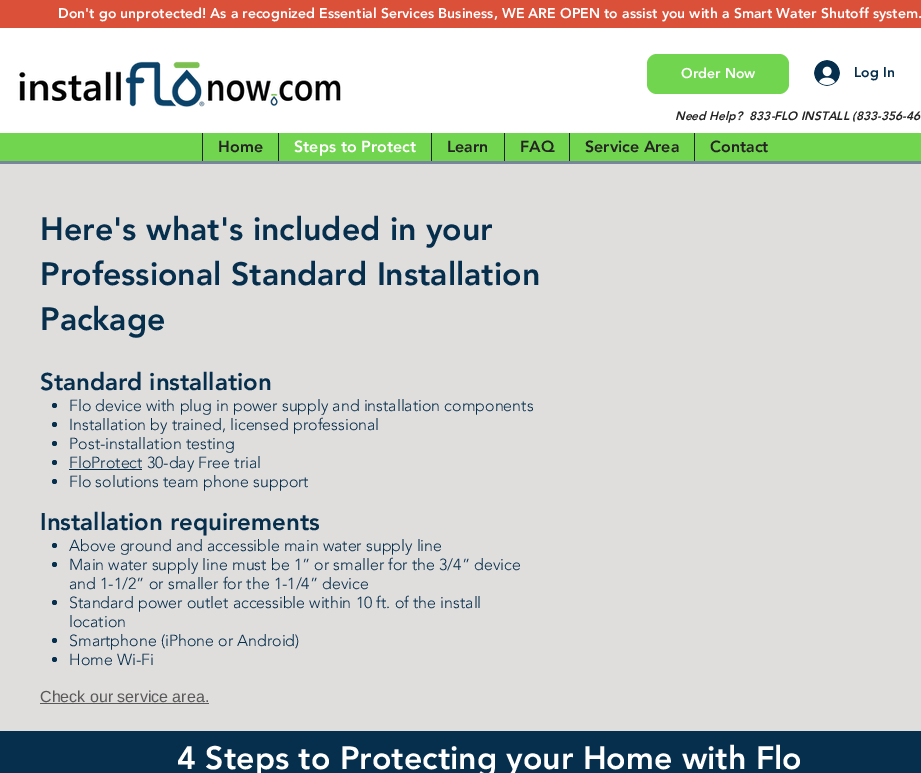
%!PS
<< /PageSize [921 773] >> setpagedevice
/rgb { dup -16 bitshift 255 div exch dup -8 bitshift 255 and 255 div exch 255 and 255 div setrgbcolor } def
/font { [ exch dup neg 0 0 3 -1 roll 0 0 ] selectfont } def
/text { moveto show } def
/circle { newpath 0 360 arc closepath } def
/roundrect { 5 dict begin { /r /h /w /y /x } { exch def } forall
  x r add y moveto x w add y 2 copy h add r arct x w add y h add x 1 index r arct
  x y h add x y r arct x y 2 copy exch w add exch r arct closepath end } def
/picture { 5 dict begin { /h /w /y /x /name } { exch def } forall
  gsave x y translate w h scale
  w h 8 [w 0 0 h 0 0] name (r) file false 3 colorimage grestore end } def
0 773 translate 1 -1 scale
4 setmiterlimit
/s1 { /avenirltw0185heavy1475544-Black 14 font 16#FFFFFF rgb } def
/s2 { /avenirltw0185heavy1475544-Black 14 font 16#062F4D rgb } def
/s3 { /avenirltw0185heavy1475544-BlackItalic 12 font 16#252424 rgb } def
/s4 { /avenirltw0185heavy1475544-Black 16 font 16#252424 rgb } def
/s5 { /avenirltw0185heavy1475544-Black 16 font 16#FFFFFF rgb } def
/s6 { /avenirltw0185heavy1475544-Black 32 font 16#062F4D rgb } def
/s7 { /avenirltw0185heavy1475544-Black 24 font 16#062F4D rgb } def
/s8 { /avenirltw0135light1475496-Light 16 font 16#062F4D rgb } def
/s9 { /LiberationSans-Regular 16 font 16#5A5959 rgb } def
/s10 { /avenirltw0185heavy1475544-Black 32 font 16#FFFFFF rgb } def
16#E0DDDD rgb
0 0 921 773 rectfill
16#DB5038 rgb
0 0 921 28 rectfill
s1
(Don't go unprotected! As a recognized Essential Services Business, WE ARE OPEN to assist you with a Smart Water Shutoff system.) 58 18 text
0 28 921 105 rectfill
(pic1.raw) 17 61 324 46 picture
16#71D54F rgb
647 54 142 40 10 roundrect fill
s1
(Order Now) 681 78 text
(pic2.raw) 814 60 26 26 picture
s2
(Log In) 854 77 text
s3
(Need Help?  833-FLO INSTALL \(833-356-46) 675 120 text
16#71D54F rgb
0 133 921 28 rectfill
16#252424 rgb
202 133 1 28 rectfill
s4
(Home) 218 152 text
278 133 1 28 rectfill
s5
(Steps to Protect) 294 152 text
16#252424 rgb
431 133 1 28 rectfill
(Learn) 447 152 text
504 133 1 28 rectfill
(FAQ) 520 152 text
569 133 1 28 rectfill
(Service Area) 585 152 text
694 133 1 28 rectfill
(Contact) 710 152 text
16#77869B rgb
0 161 921 3 rectfill
s6
(Here's what's included in your) 40 240 text
(Professional Standard Installation) 40 285 text
(Package) 40 330 text
s7
(Standard installation) 40 390 text
54.5 405.5 2.5 circle fill
s8
(Flo device with plug in power supply and installation components) 69 411 text
54.5 424.5 2.5 circle fill
(Installation by trained, licensed professional) 69 430 text
54.5 443.5 2.5 circle fill
(Post-installation testing) 69 449 text
54.5 462.5 2.5 circle fill
69 469 73 1 rectfill
(FloProtect 30-day Free trial) 69 468 text
54.5 481.5 2.5 circle fill
(Flo solutions team phone support) 69 487 text
s7
(Installation requirements) 40 530 text
54.5 545.5 2.5 circle fill
s8
(Above ground and accessible main water supply line) 69 551 text
54.5 564.5 2.5 circle fill
(Main water supply line must be 1” or smaller for the 3/4” device) 69 570 text
(and 1-1/2” or smaller for the 1-1/4” device) 69 589 text
54.5 602.5 2.5 circle fill
(Standard power outlet accessible within 10 ft. of the install) 69 608 text
(location) 69 627 text
54.5 640.5 2.5 circle fill
(Smartphone \(iPhone or Android\)) 69 646 text
54.5 659.5 2.5 circle fill
(Home Wi-Fi) 69 665 text
s9
(Check our service area.) 40 702 text
40 703 169 1 rectfill
16#062F4D rgb
0 731 921 42 rectfill
s10
(4 Steps to Protecting your Home with Flo) 177 769 text
showpage
